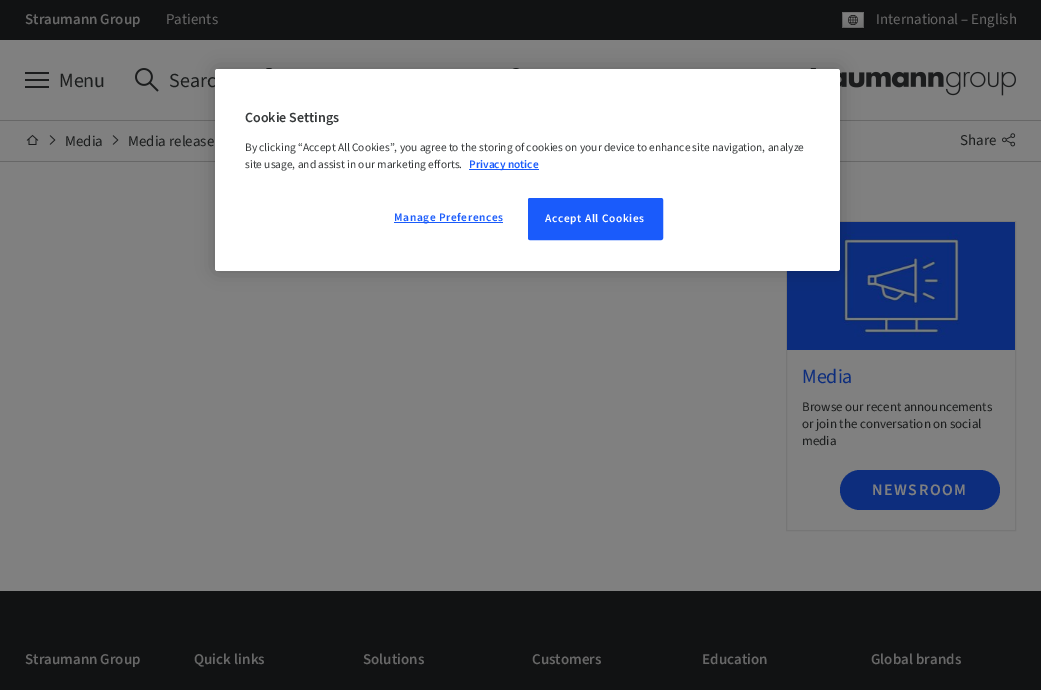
%!PS
<< /PageSize [1041 690] /PageUsesTransparency true >> setpagedevice
/rgb { dup -16 bitshift 255 div exch dup -8 bitshift 255 and 255 div exch 255 and 255 div setrgbcolor } def
/font { [ exch dup neg 0 0 3 -1 roll 0 0 ] selectfont } def
/text { moveto show } def
/alpha { dup .setfillconstantalpha .setstrokeconstantalpha } def
/roundrect { 5 dict begin { /r /h /w /y /x } { exch def } forall
  x r add y moveto x w add y 2 copy h add r arct x w add y h add x 1 index r arct
  x y h add x y r arct x y 2 copy exch w add exch r arct closepath end } def
/shadow { 12 dict begin { /a /b /q /h /w /y /x } { exch def } forall gsave /was 0 def
  9 -2 -9 { dup b mul 4 div /e exch def 1 sub .425 mul 2.718 exch exp 1 add a .99 .min exch div /now exch def
    1 1 now sub 1 was sub div sub alpha /was now def
    w h .min e 2 mul add 0 gt { x e sub y e sub w e 2 mul add h e 2 mul add
      q e add b .6 mul add w h .min 2 div e add .min 0 .max roundrect fill } if } for grestore end } def
/picture { 5 dict begin { /h /w /y /x /name } { exch def } forall
  gsave x y translate w h scale
  w h 8 [w 0 0 h 0 0] name (r) file false 3 colorimage grestore end } def
0 .pushpdf14devicefilter
0 690 translate 1 -1 scale
4 setmiterlimit
/s1 { /SourceSans3-SemiBold 15 font 16#676767 rgb } def
/s2 { /SourceSans3-Regular 15 font 16#676767 rgb } def
/s3 { /SourceSans3-Regular 20 font 16#1B1D1D rgb } def
/s4 { /SourceSans3-Regular 15 font 16#1B1D1D rgb } def
/s5 { /SourceSans3-SemiBold 14 font 16#36393A rgb } def
/s6 { /SourceSans3-Regular 11.4 font 16#36393A rgb } def
/s7 { /SourceSans3-SemiBold 11.4 font 16#1A5BFB rgb } def
/s8 { /SourceSans3-Regular 20 font 16#0D2D7D rgb } def
/s9 { /SourceSans3-Regular 13 font 16#1B1D1D rgb } def
16#808080 rgb
0 0 1041 690 rectfill
16#111213 rgb
0 0 1041 40 rectfill
s1
(Straumann Group) 25 24 text
s2
(Patients) 166 24 text
(pic1.raw) 842 12 22 17 picture
(International – English) 876 24 text
0 120 1041 1 rectfill
(pic2.raw) 266 68 7 1 picture
(pic3.raw) 512 68 8 1 picture
(pic4.raw) 25 72 24 16 picture
s3
(Menu) 59 87 text
(pic5.raw) 135 68 24 24 picture
(Searc) 169 87 text
(pic6.raw) 810 68 206 28 picture
16#676767 rgb
0 161 1041 1 rectfill
(pic7.raw) 26 134 13 11 picture
(pic8.raw) 49 135 7 10 picture
s4
(Media) 65 146 text
(pic8.raw) 112 135 7 10 picture
(Media release) 128 146 text
(Share) 960 145 text
(pic9.raw) 1002 133 14 14 picture
16#767676 rgb
786.5 221.5 229 309 rectstroke
(pic10.raw) 787 222 228 128 picture
16#000000 rgb
215 69 625 202 2.5 9 0.2 shadow
16#FFFFFF rgb
215 69 625 202 2.5 roundrect fill
s5
(Cookie Settings) 245 122 text
s6
(By clicking “Accept All Cookies”, you agree to the storing of cookies on your device to enhance site navigation, analyze) 245 151 text
(site usage, and assist in our marketing efforts.) 245 168 text
16#1A5BFB rgb
469 169 70 1 rectfill
s7
(Privacy notice) 469 168 text
394 222 109 1 rectfill
394 221 moveto 0.6 0 (Manage Preferences) ashow
528.5 198.5 134 41 1.5 roundrect gsave fill grestore
stroke
16#FFFFFF rgb
545 222 moveto 0.6 0 (Accept All Cookies) ashow
s8
(Media) 802 383 text
s9
(Browse our recent announcements) 802 411 text
(or join the conversation on social) 802 428 text
(media) 802 445 text
16#0D2D7D rgb
840 470 160 40 20 roundrect fill
/SourceSans3-SemiBold 16 font
16#808080 rgb
872 495 moveto 1.5 0 (NEWSROOM) ashow
16#111213 rgb
0 591 1041 99 rectfill
s1
(Straumann Group) 25 664 text
(Quick links) 194 664 text
(Solutions) 363 664 text
(Customers) 532 664 text
(Education) 702 664 text
(Global brands) 871 664 text
.poppdf14devicefilter showpage
